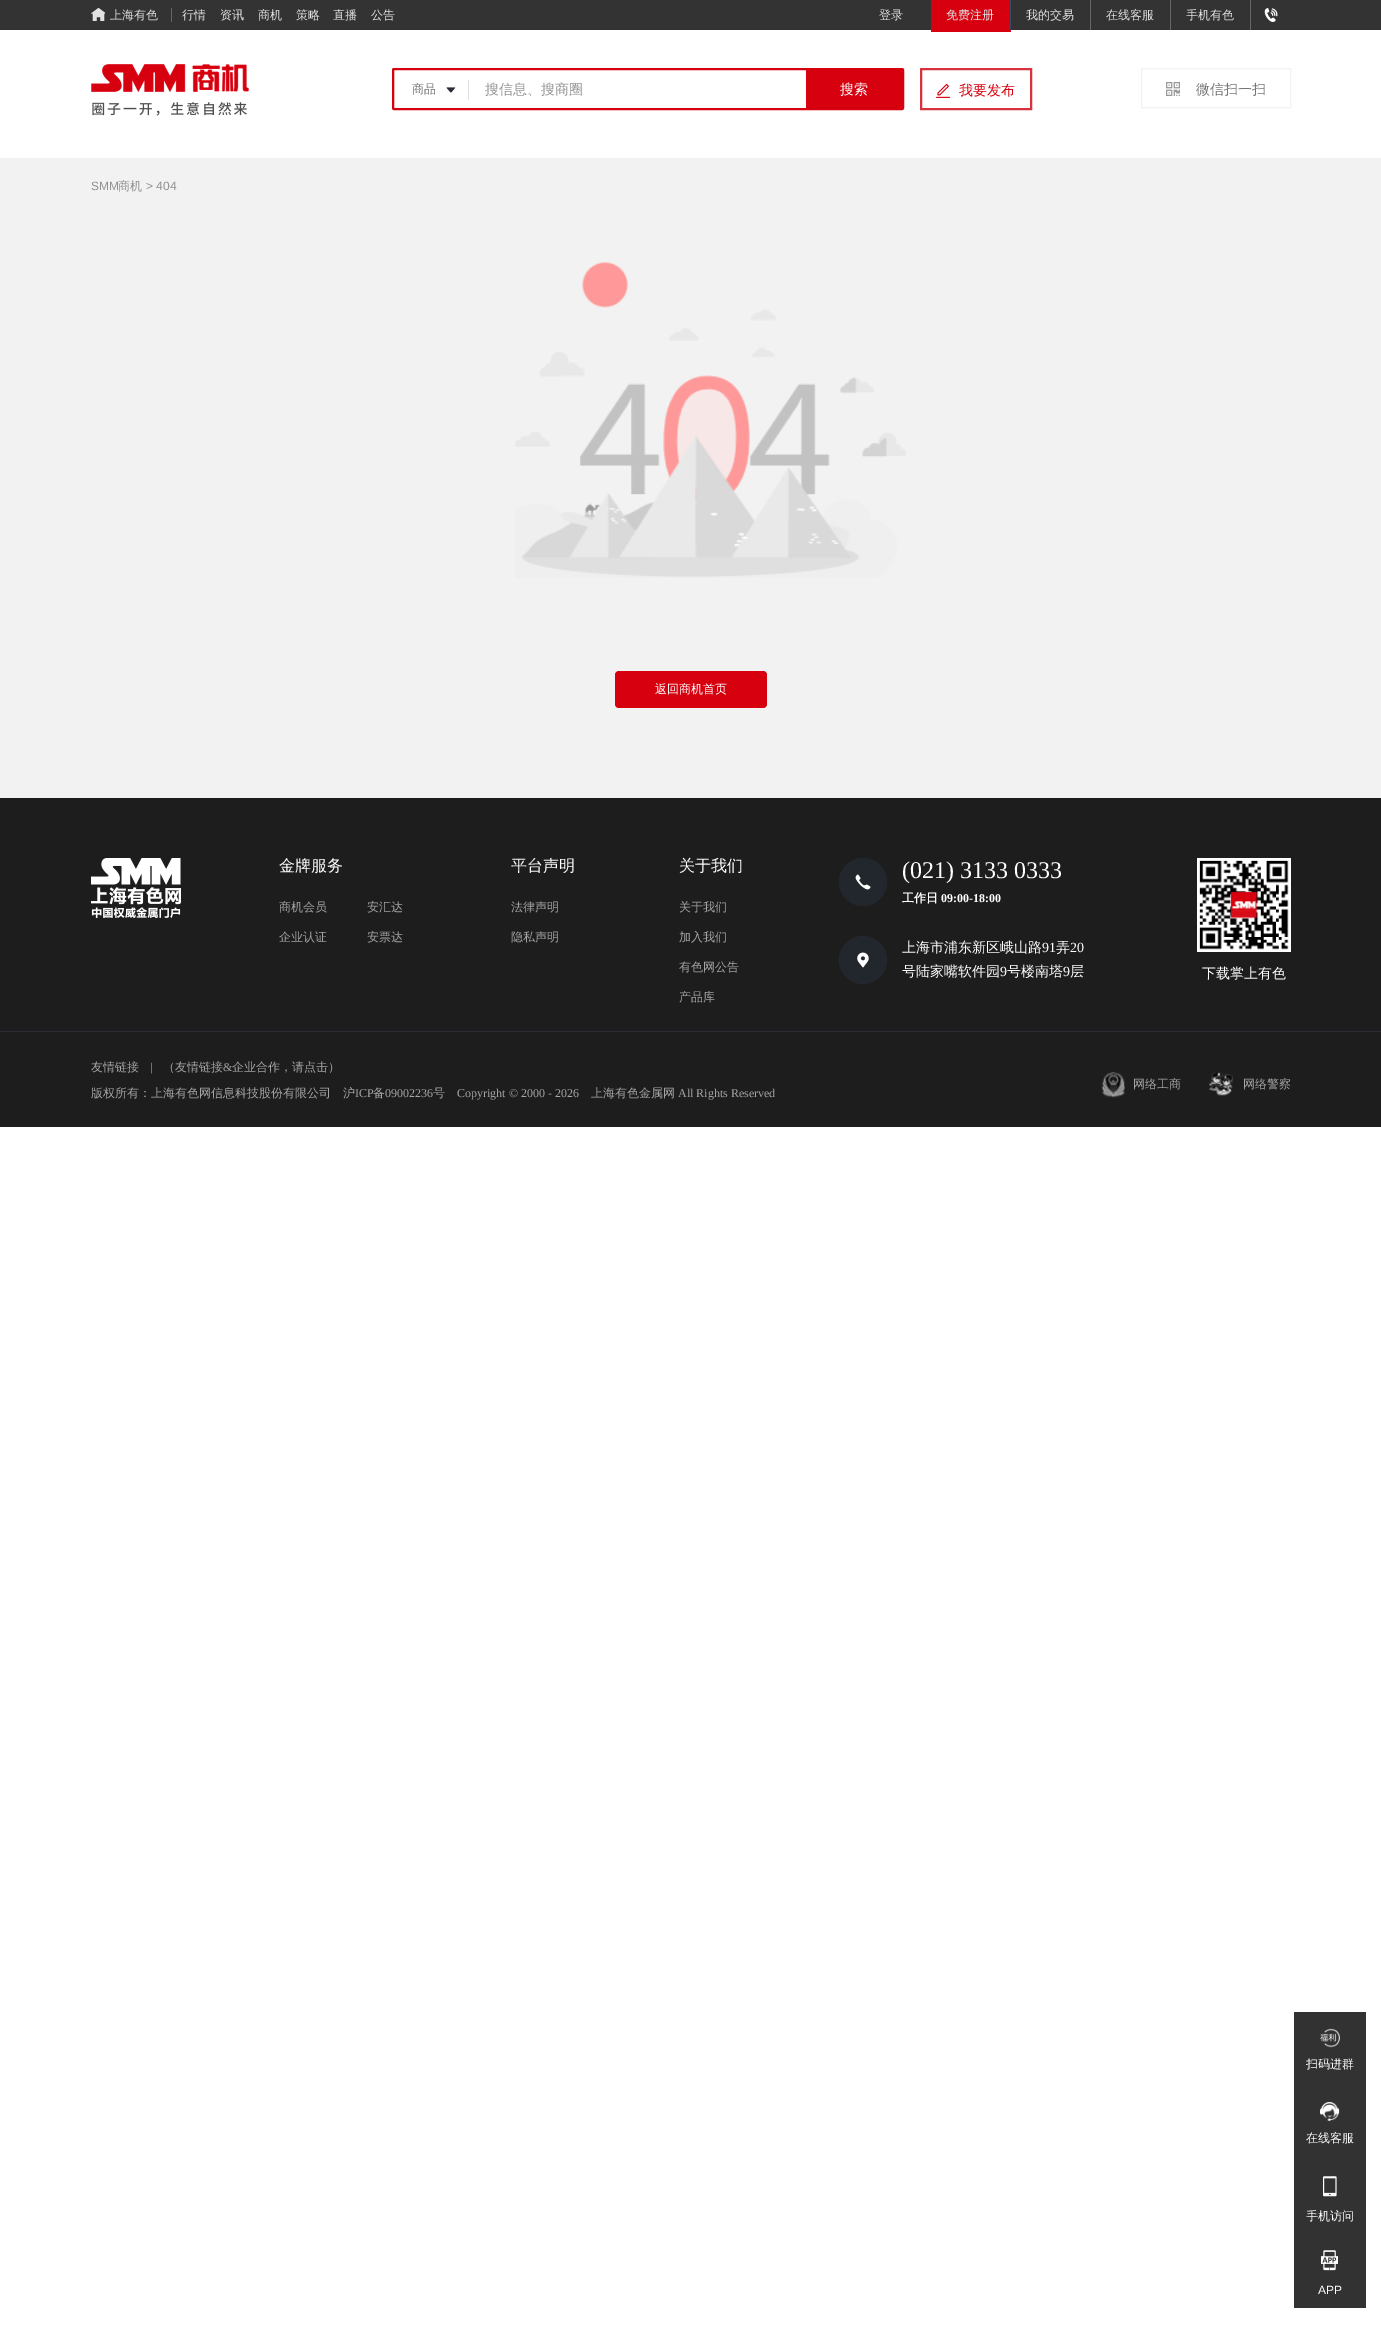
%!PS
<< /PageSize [1381 2338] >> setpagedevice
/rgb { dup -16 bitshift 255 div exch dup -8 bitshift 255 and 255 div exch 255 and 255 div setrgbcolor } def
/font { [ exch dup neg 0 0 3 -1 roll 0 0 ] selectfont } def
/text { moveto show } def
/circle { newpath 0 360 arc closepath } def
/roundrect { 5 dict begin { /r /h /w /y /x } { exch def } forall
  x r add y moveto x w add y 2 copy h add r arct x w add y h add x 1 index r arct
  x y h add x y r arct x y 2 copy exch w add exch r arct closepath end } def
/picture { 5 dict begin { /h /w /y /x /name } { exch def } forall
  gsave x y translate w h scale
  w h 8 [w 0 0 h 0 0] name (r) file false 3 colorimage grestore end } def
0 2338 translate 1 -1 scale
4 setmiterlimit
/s1 { /WenQuanYiZenHei-Medium 12 font 16#E1E1E1 rgb } def
/s2 { /WenQuanYiZenHei-Medium 12 font 16#757575 rgb } def
/s3 { /WenQuanYiZenHei-Medium 14 font 16#979797 rgb } def
/s4 { /WenQuanYiZenHei-Medium 14 font 16#FFFFFF rgb } def
/s5 { /WenQuanYiZenHei-Medium 14 font 16#D7000F rgb } def
/s6 { /WenQuanYiZenHei-Medium 14 font 16#757575 rgb } def
/s7 { /LiberationSans-Regular 12 font 16#909090 rgb } def
/s8 { /WenQuanYiZenHei-Medium 12 font 16#909090 rgb } def
/s9 { /WenQuanYiZenHei-Medium 12 font 16#FFFFFF rgb } def
/s10 { /WenQuanYiZenHei-Medium 16 font 16#FFFFFF rgb } def
/s11 { /WenQuanYiZenHei-Medium 12 font 16#A5A5A5 rgb } def
/s12 { /LiberationSerif-Regular 24 font 16#FFFFFF rgb } def
/s13 { /WenQuanYiZenHei-Bold 12 font 16#FFFFFF rgb } def
/s14 { /LiberationSerif-Bold 12 font 16#FFFFFF rgb } def
/s15 { /LiberationSerif-Regular 14 font 16#FFFFFF rgb } def
/s16 { /LiberationSerif-Regular 12 font 16#BBBBBF rgb } def
/s17 { /LiberationSerif-Regular 12 font 16#A5A5A5 rgb } def
/s18 { /LiberationSans-Regular 12 font 16#FFFFFF rgb } def
16#FFFFFF rgb
0 0 1381 2338 rectfill
16#333333 rgb
0 0 1381 30 rectfill
16#666666 rgb
171 8 1 14 rectfill
(pic1.raw) 91 8 14 13 picture
s1
(上海有色) 110 19 text
(行情) 182 19 text
(资讯) 220 19 text
(商机) 258 19 text
(策略) 296 19 text
(直播) 333 19 text
(公告) 371 19 text
(登录) 879 19 text
16#D7000F rgb
931 30 80 2 rectfill
931 0 79 30 rectfill
16#384A65 rgb
1010 0 1 30 rectfill
s1
(免费注册) 946 19 text
16#666666 rgb
1090 0 1 30 rectfill
s1
(我的交易) 1026 19 text
16#666666 rgb
1170 0 1 30 rectfill
s1
(在线客服) 1106 19 text
16#666666 rgb
1250 0 1 30 rectfill
s1
(手机有色) 1186 19 text
(pic2.raw) 1264 8 14 14 picture
(pic3.raw) 91 64 158 52 picture
16#D7000F rgb
2 setlinewidth
393 69 510 40 1 roundrect stroke
16#DEE0E4 rgb
468 80 1 20 rectfill
s2
(商品) 412 93 text
(pic4.raw) 446 87 10 6 picture
s3
(搜信息、搜商圈) 485 94 text
16#D7000F rgb
806 70 96 38 rectfill
s4
(搜索) 840 94 text
16#D8323E rgb
921 69 110 40 rectstroke
(pic5.raw) 936 84 14 14 picture
s5
(我要发布) 959 95 text
16#F2F2F2 rgb
1 setlinewidth
1141.5 68.5 149 39 rectstroke
(pic6.raw) 1166 82 14 14 picture
s6
(微信扫一扫) 1196 94 text
16#F2F2F2 rgb
0 158 1381 640 rectfill
s7
(SMM) 91 190 text
s8
(商机) 118 190 text
s7
(> 404) 146 190 text
(pic7.raw) 515 262 391 316 picture
16#D7000F rgb
615 671 152 37 4 roundrect fill
s9
(返回商机首页) 655 693 text
16#1D1D1E rgb
0 798 1381 329 rectfill
(pic8.raw) 91 858 90 60 picture
s10
(金牌服务) 279 871 text
s11
(商机会员) 279 911 text
(企业认证) 279 941 text
(安汇达) 367 911 text
(安票达) 367 941 text
s10
(平台声明) 511 871 text
s11
(法律声明) 511 911 text
(隐私声明) 511 941 text
s10
(关于我们) 679 871 text
s11
(关于我们) 679 911 text
(加入我们) 679 941 text
(有色网公告) 679 971 text
(产品库) 679 1001 text
16#22272D rgb
863 882 24 circle fill
(pic9.raw) 855 874 16 16 picture
s12
(\(021\) 3133 0333) 902 878 text
s13
(工作日) 902 902 text
s14
(09:00-18:00) 941 902 text
16#22272D rgb
863 960 24 circle fill
(pic10.raw) 857 952 12 16 picture
s4
(上海市浦东新区峨山路) 902 952 text
s15
(91) 1042 952 text
s4
(弄) 1056 952 text
s15
(20) 1070 952 text
s4
(号陆家嘴软件园) 902 976 text
s15
(9) 1000 976 text
s4
(号楼南塔) 1007 976 text
s15
(9) 1063 976 text
s4
(层) 1070 976 text
(pic11.raw) 1197 858 94 94 picture
(下载掌上有色) 1202 978 text
16#2D2C34 rgb
0 1031 1381 1 rectfill
s11
(友情链接) 91 1071 text
s16
(|) 150 1071 text
s11
(（友情链接) 163 1071 text
s17
(&) 223 1071 text
s11
(企业合作，请点击）) 232 1071 text
(版权所有：上海有色网信息科技股份有限公司) 91 1097 text
(沪) 343 1097 text
s17
(ICP) 355 1097 text
s11
(备) 373 1097 text
s17
(09002236) 385 1097 text
s11
(号) 433 1097 text
s17
(Copyright © 2000 - 2026) 457 1097 text
s11
(上海有色金属网) 591 1097 text
s17
(All Rights Reserved) 678 1097 text
(pic12.raw) 1101 1072 24 26 picture
s11
(网络工商) 1133 1088 text
(pic13.raw) 1209 1072 24 24 picture
(网络警察) 1243 1088 text
16#323232 rgb
1294 2012 72 148 rectfill
(pic14.raw) 1320 2028 20 20 picture
s9
(扫码进群) 1306 2068 text
(pic15.raw) 1320 2102 20 19 picture
(在线客服) 1306 2142 text
16#323232 rgb
1294 2160 72 148 rectfill
(pic16.raw) 1323 2176 14 21 picture
s9
(手机访问) 1306 2220 text
(pic17.raw) 1321 2250 17 21 picture
s18
(APP) 1318 2294 text
showpage
